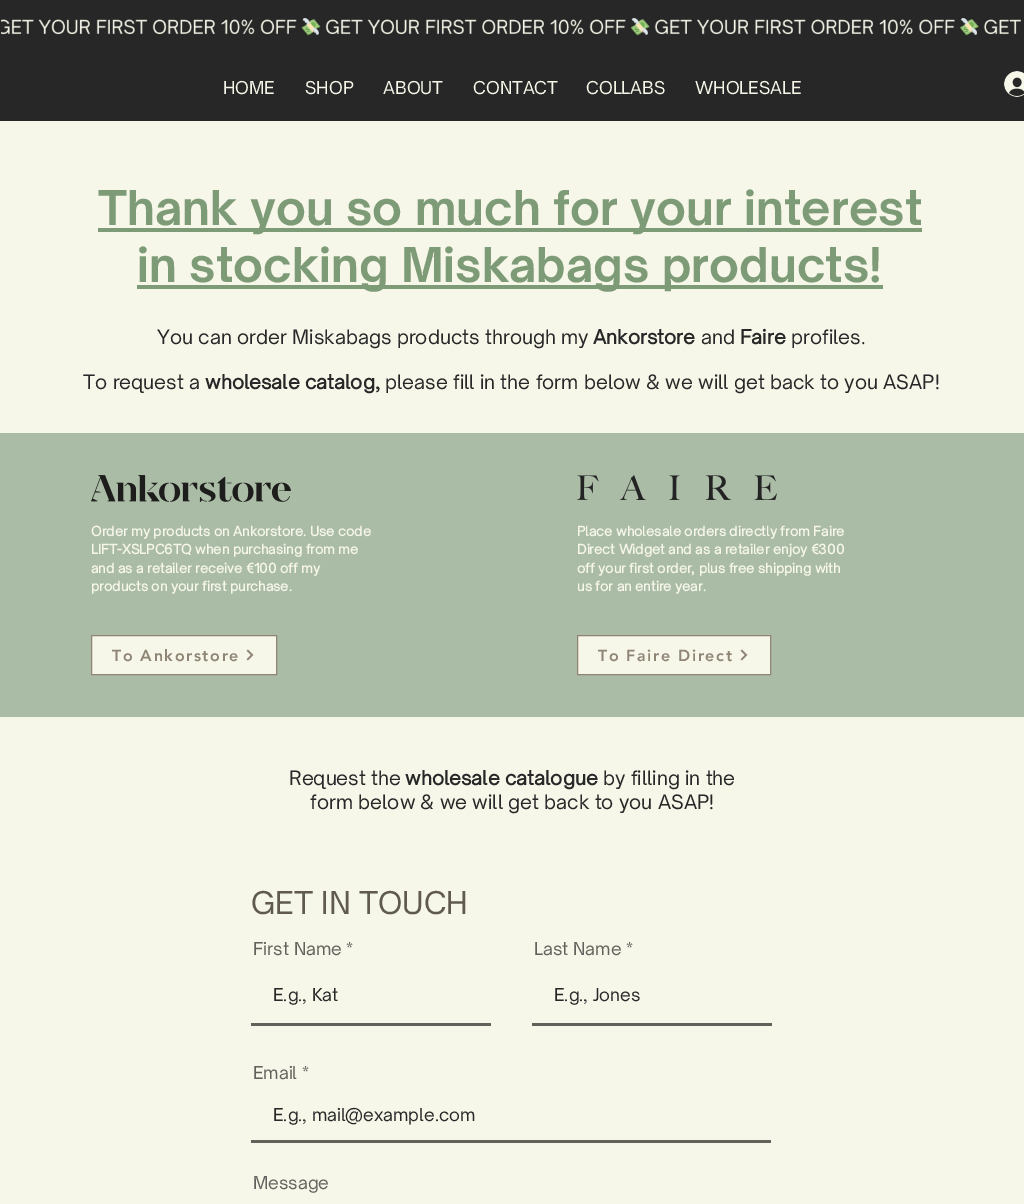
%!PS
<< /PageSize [1024 1204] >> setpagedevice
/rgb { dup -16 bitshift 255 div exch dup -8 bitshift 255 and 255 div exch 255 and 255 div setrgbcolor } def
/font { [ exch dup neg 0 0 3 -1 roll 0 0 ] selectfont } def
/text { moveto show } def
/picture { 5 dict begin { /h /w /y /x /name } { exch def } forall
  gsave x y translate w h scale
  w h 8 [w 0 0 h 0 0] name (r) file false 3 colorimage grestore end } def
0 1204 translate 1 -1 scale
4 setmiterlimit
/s1 { /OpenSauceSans-Regular 17 font 16#F6F6E9 rgb } def
/s2 { /OpenSauceSans-Bold 46 font 16#7D9B76 rgb } def
/s3 { /OpenSauceSans-Regular 19 font 16#272727 rgb } def
/s4 { /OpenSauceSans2-Bold 19 font 16#272727 rgb } def
/s5 { /OpenSauceSans2-Bold 13 font 16#F6F6E9 rgb } def
/s6 { /OpenSauceSans-Regular 30 font 16#5F594E rgb } def
/s7 { /OpenSauceSans-Regular 17 font 16#62625D rgb } def
/s8 { /OpenSauceSans-Regular 17 font 16#272727 rgb } def
16#F6F6E9 rgb
0 0 1024 1204 rectfill
16#272727 rgb
0 0 1024 121 rectfill
(pic1.raw) 1 18 1020 18 picture
s1
(HOME) 223 94 text
(SHOP) 305 94 text
(ABOUT) 383 94 text
(CONTACT) 473 94 text
(COLLABS) 586 94 text
(WHOLESALE) 695 94 text
(pic2.raw) 1004 71 20 26 picture
16#7D9B76 rgb
98 228 824 4 rectfill
s2
(Thank you so much for your interest) 98 225 text
137 285 746 4 rectfill
(in stocking Miskabags products!) 137 282 text
s3
(You can order Miskabags products through my) 157 344 text
s4
(Ankorstore) 593 344 text
s3
(and) 701 344 text
s4
(Faire) 740 344 text
s3
(profiles.) 791 344 text
(To request a) 83 389 text
s4
(wholesale catalog,) 205 389 text
s3
(please fill in the form below & we will get back to you ASAP!) 385 389 text
16#AABCA6 rgb
0 433 1024 284 rectfill
(pic3.raw) 91 475 200 27 picture
(pic4.raw) 577 475 200 25 picture
s5
(Order my products on Ankorstore. Use code) 91 536 text
(LIFT-XSLPC6TQ when purchasing from me) 91 554 text
(and as a retailer receive €100 off my) 91 573 text
(products on your first purchase.) 91 591 text
(Place wholesale orders directly from Faire) 577 536 text
(Direct Widget and as a retailer enjoy €300) 577 554 text
(off your first order, plus free shipping with) 577 573 text
(us for an entire year.) 577 591 text
91.5 635.5 moveto 276.5 635.5 lineto 276.5 674.5 lineto 91.5 674.5 lineto closepath gsave fill grestore
16#8E8575 rgb
stroke
/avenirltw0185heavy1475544-Black 16 font
112 661 moveto 1.6 0 (To Ankorstore) ashow
(pic5.raw) 246 649 8 12 picture
16#F6F6E9 rgb
577.5 635.5 moveto 770.5 635.5 lineto 770.5 674.5 lineto 577.5 674.5 lineto closepath gsave fill grestore
16#8E8575 rgb
stroke
598 661 moveto 1.6 0 (To Faire Direct) ashow
(pic5.raw) 740 649 8 12 picture
s3
(Request the) 289 785 text
s4
(wholesale catalogue) 405 785 text
s3
(by filling in the) 603 785 text
(form below & we will get back to you ASAP!) 310 809 text
s6
(GET IN TOUCH) 251 914 text
s7
(First Name *) 253 955 text
251 1023 240 3 rectfill
s8
(E.g., Kat) 273 1001 text
s7
(Last Name *) 534 955 text
532 1023 240 3 rectfill
s8
(E.g., Jones) 554 1001 text
s7
(Email *) 253 1079 text
251 1140 520 3 rectfill
s8
(E.g., mail@example.com) 273 1121 text
s7
(Message) 253 1189 text
showpage
